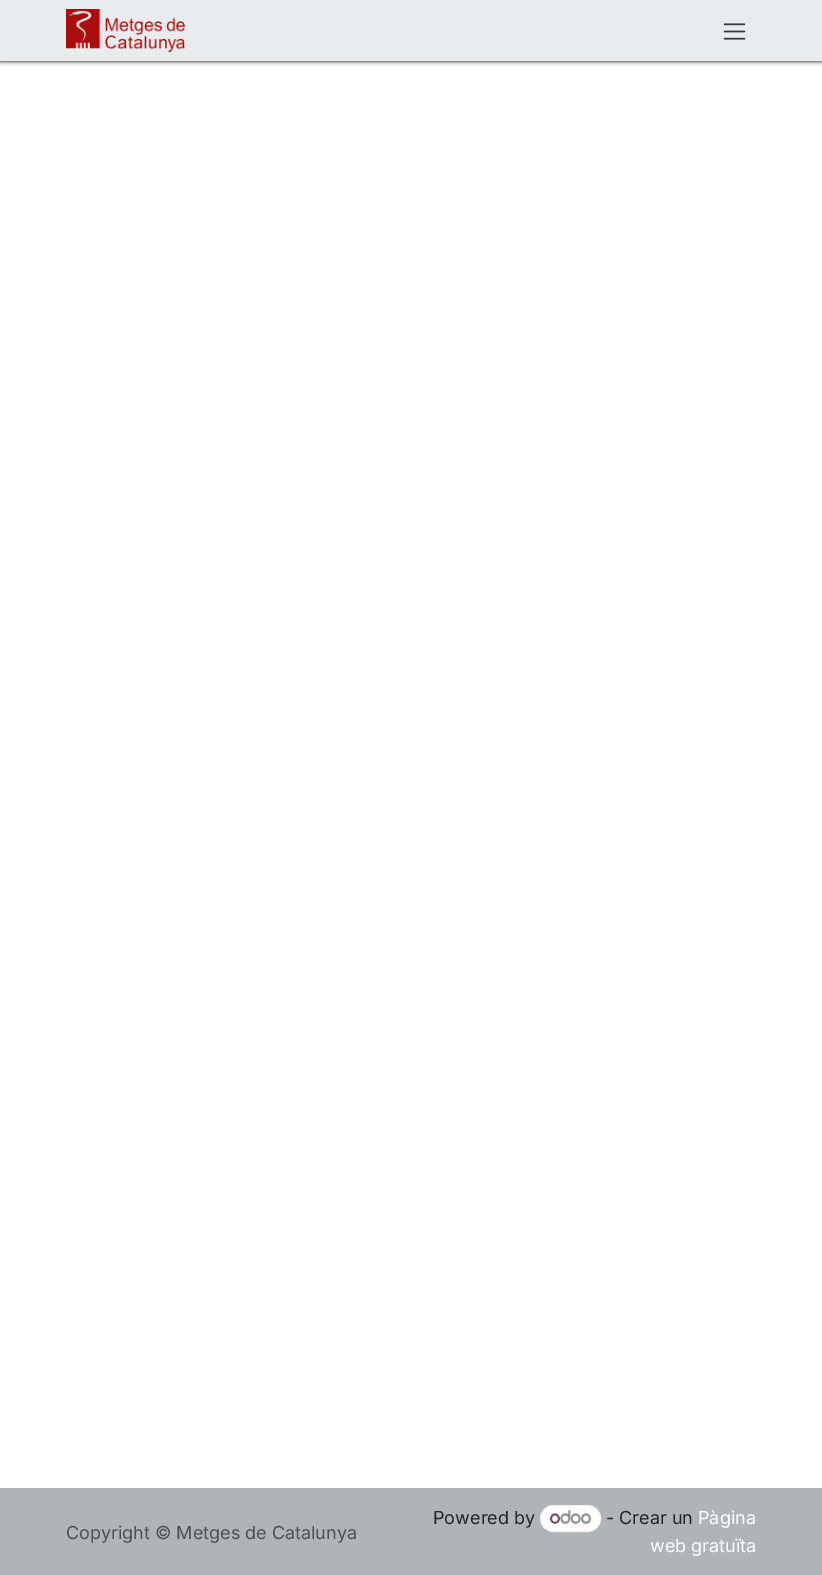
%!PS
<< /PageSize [822 1575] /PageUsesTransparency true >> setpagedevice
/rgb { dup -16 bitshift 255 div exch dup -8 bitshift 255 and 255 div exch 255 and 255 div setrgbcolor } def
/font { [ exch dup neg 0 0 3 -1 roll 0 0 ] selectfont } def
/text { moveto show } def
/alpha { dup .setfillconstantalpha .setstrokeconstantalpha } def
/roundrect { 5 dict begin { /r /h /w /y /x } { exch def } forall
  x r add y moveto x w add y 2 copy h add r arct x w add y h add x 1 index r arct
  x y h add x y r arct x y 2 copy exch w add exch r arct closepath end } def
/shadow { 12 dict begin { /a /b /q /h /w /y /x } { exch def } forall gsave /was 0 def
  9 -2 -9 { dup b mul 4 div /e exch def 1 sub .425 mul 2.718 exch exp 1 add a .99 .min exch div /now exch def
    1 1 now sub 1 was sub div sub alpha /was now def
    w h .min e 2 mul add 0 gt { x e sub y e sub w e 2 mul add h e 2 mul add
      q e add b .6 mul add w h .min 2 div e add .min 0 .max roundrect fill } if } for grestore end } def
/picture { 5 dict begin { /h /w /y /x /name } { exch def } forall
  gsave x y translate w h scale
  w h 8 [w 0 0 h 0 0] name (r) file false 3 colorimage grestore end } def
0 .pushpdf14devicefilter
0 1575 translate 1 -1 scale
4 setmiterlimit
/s1 { /Inter-Regular 18 font 16#4C5054 rgb } def
/s2 { /Inter-Regular 18 font 16#212529 rgb } def
/s3 { /Inter-Regular 18 font 16#FFFFFF rgb } def
16#FFFFFF rgb
0 0 822 1575 rectfill
16#000000 rgb
0 0 822 61 0 2.5 1 shadow
16#E9ECEF rgb
0 0 822 61 rectfill
(pic1.raw) 66 9 119 43 picture
(pic2.raw) 723 23 23 17 picture
16#AFB4B9 rgb
0 1488 822 87 rectfill
s1
(Copyright © Metges de Catalunya) 66 1539 text
s2
(Powered by) 433 1524 text
16#FEFEFE rgb
540.5 1505.5 60 26 13 roundrect gsave fill grestore
16#F3F2F2 rgb
stroke
(pic3.raw) 550 1510 41 14 picture
s2
(- Crear un) 606 1524 text
s3
(Pàgina) 698 1524 text
(web gratuïta) 650 1552 text
.poppdf14devicefilter showpage
